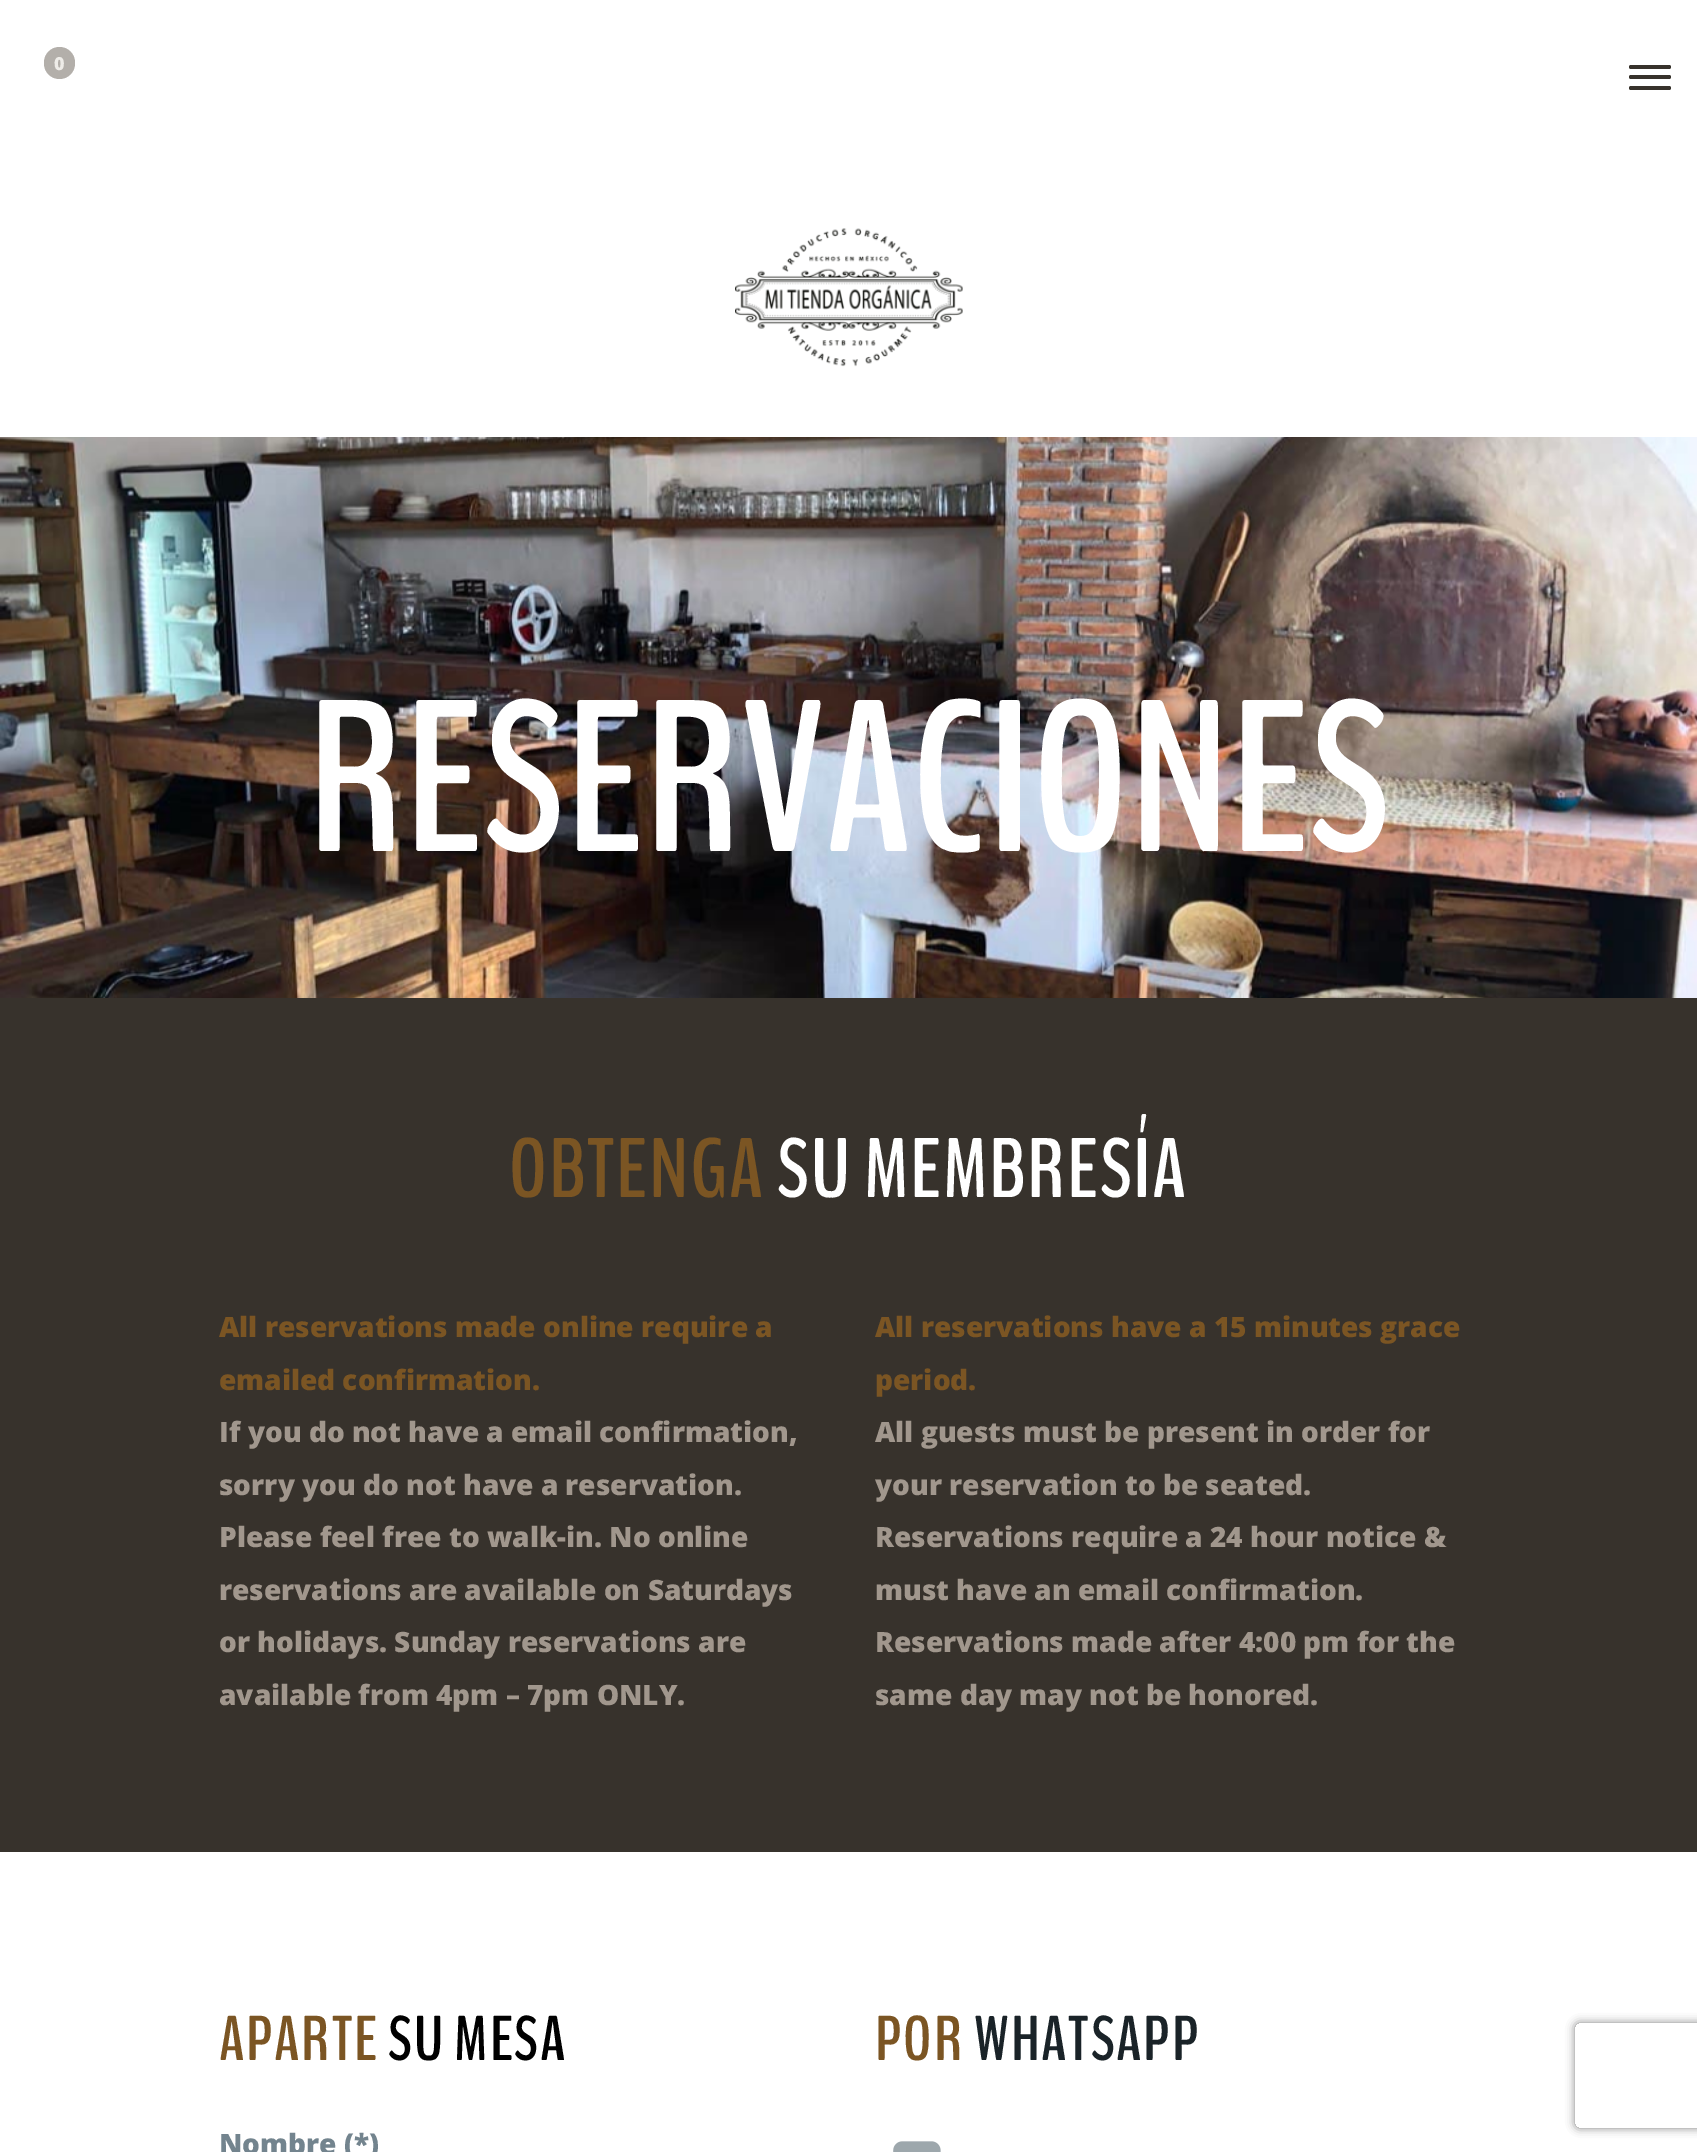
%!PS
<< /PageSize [1697 2152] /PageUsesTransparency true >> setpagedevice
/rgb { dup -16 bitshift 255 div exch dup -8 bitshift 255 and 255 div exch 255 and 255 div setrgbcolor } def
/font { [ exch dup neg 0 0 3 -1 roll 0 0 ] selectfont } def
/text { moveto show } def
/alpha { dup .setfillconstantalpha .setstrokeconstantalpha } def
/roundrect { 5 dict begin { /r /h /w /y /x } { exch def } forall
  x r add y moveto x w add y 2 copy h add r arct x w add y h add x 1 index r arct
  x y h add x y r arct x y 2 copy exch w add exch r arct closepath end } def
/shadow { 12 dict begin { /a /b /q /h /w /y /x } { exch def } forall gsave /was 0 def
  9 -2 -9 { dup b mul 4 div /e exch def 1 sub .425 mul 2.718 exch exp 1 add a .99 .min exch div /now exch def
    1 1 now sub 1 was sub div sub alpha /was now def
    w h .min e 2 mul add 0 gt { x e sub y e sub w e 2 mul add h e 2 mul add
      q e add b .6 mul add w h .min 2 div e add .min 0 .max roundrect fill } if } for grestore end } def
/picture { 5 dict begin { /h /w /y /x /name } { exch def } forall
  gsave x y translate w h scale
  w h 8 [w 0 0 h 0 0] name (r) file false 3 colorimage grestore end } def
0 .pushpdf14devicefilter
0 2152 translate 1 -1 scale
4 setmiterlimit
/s1 { /OpenSans-ExtraBold 18 font 16#EEECE8 rgb } def
/s2 { /BenchNine-Bold 215.25 font 16#FFFFFF rgb } def
/s3 { /OpenSans-ExtraBold 28 font 16#7B5523 rgb } def
/s4 { /OpenSans-ExtraBold 28 font 16#A1978D rgb } def
/s5 { /OpenSans-ExtraBold 28 font 16#73848E rgb } def
16#FFFFFF rgb
0 0 1697 2152 rectfill
16#B3AFAA rgb
44 47 31 32 15.5 roundrect fill
s1
(0) 54 70 text
16#37322C rgb
1629 65 42 4 2 roundrect fill
1629 75 42 4 2 roundrect fill
1629 86 42 4 2 roundrect fill
(pic1.raw) 735 228 228 139 picture
(pic2.raw) 0 437 1697 561 picture
s2
(RESERVACIONES) 307 851 text
16#37322C rgb
0 998 1697 854 rectfill
/BenchNine-Bold 84 font
16#7B5523 rgb
509 1197 moveto 1.75 0 (OBTENGA) ashow
16#FFFFFF rgb
777 1197 moveto 1.75 0 (SU MEMBRESÍA) ashow
s3
(All reservations made online require a) 219 1337 text
(emailed confirmation.) 219 1390 text
s4
(If you do not have a email confirmation,) 219 1442 text
(sorry you do not have a reservation.) 219 1495 text
(Please feel free to walk-in. No online) 219 1547 text
(reservations are available on Saturdays) 219 1600 text
(or holidays. Sunday reservations are) 219 1652 text
(available from 4pm – 7pm ONLY.) 219 1705 text
s3
(All reservations have a 15 minutes grace) 875 1337 text
(period.) 875 1390 text
s4
(All guests must be present in order for) 875 1442 text
(your reservation to be seated.) 875 1495 text
(Reservations require a 24 hour notice &) 875 1547 text
(must have an email confirmation.) 875 1600 text
(Reservations made after 4:00 pm for the) 875 1652 text
(same day may not be honored.) 875 1705 text
/BenchNine-Bold 63 font
16#7B5523 rgb
219 2060 moveto 1.75 0 (APARTE) ashow
16#000000 rgb
388 2060 moveto 1.75 0 (SU MESA) ashow
s5
(Nombre \(*\)) 219 2154 text
/BenchNine-Bold 63 font
16#7B5523 rgb
875 2060 moveto 1.75 0 (POR) ashow
16#1A2328 rgb
974 2060 moveto 1.75 0 (WHATSAPP) ashow
(pic3.raw) 893 2141 48 11 picture
gsave
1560 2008 moveto 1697 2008 lineto 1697 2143 lineto 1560 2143 lineto closepath 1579 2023 moveto 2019 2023 lineto 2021 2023 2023 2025 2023 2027 curveto 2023 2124 lineto 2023 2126 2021 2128 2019 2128 curveto 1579 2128 lineto 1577 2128 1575 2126 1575 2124 curveto 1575 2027 lineto 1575 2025 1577 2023 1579 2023 curveto closepath eoclip newpath
16#808080 rgb
1575 2023 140 105 4 4.5 1 shadow
grestore
.poppdf14devicefilter showpage
